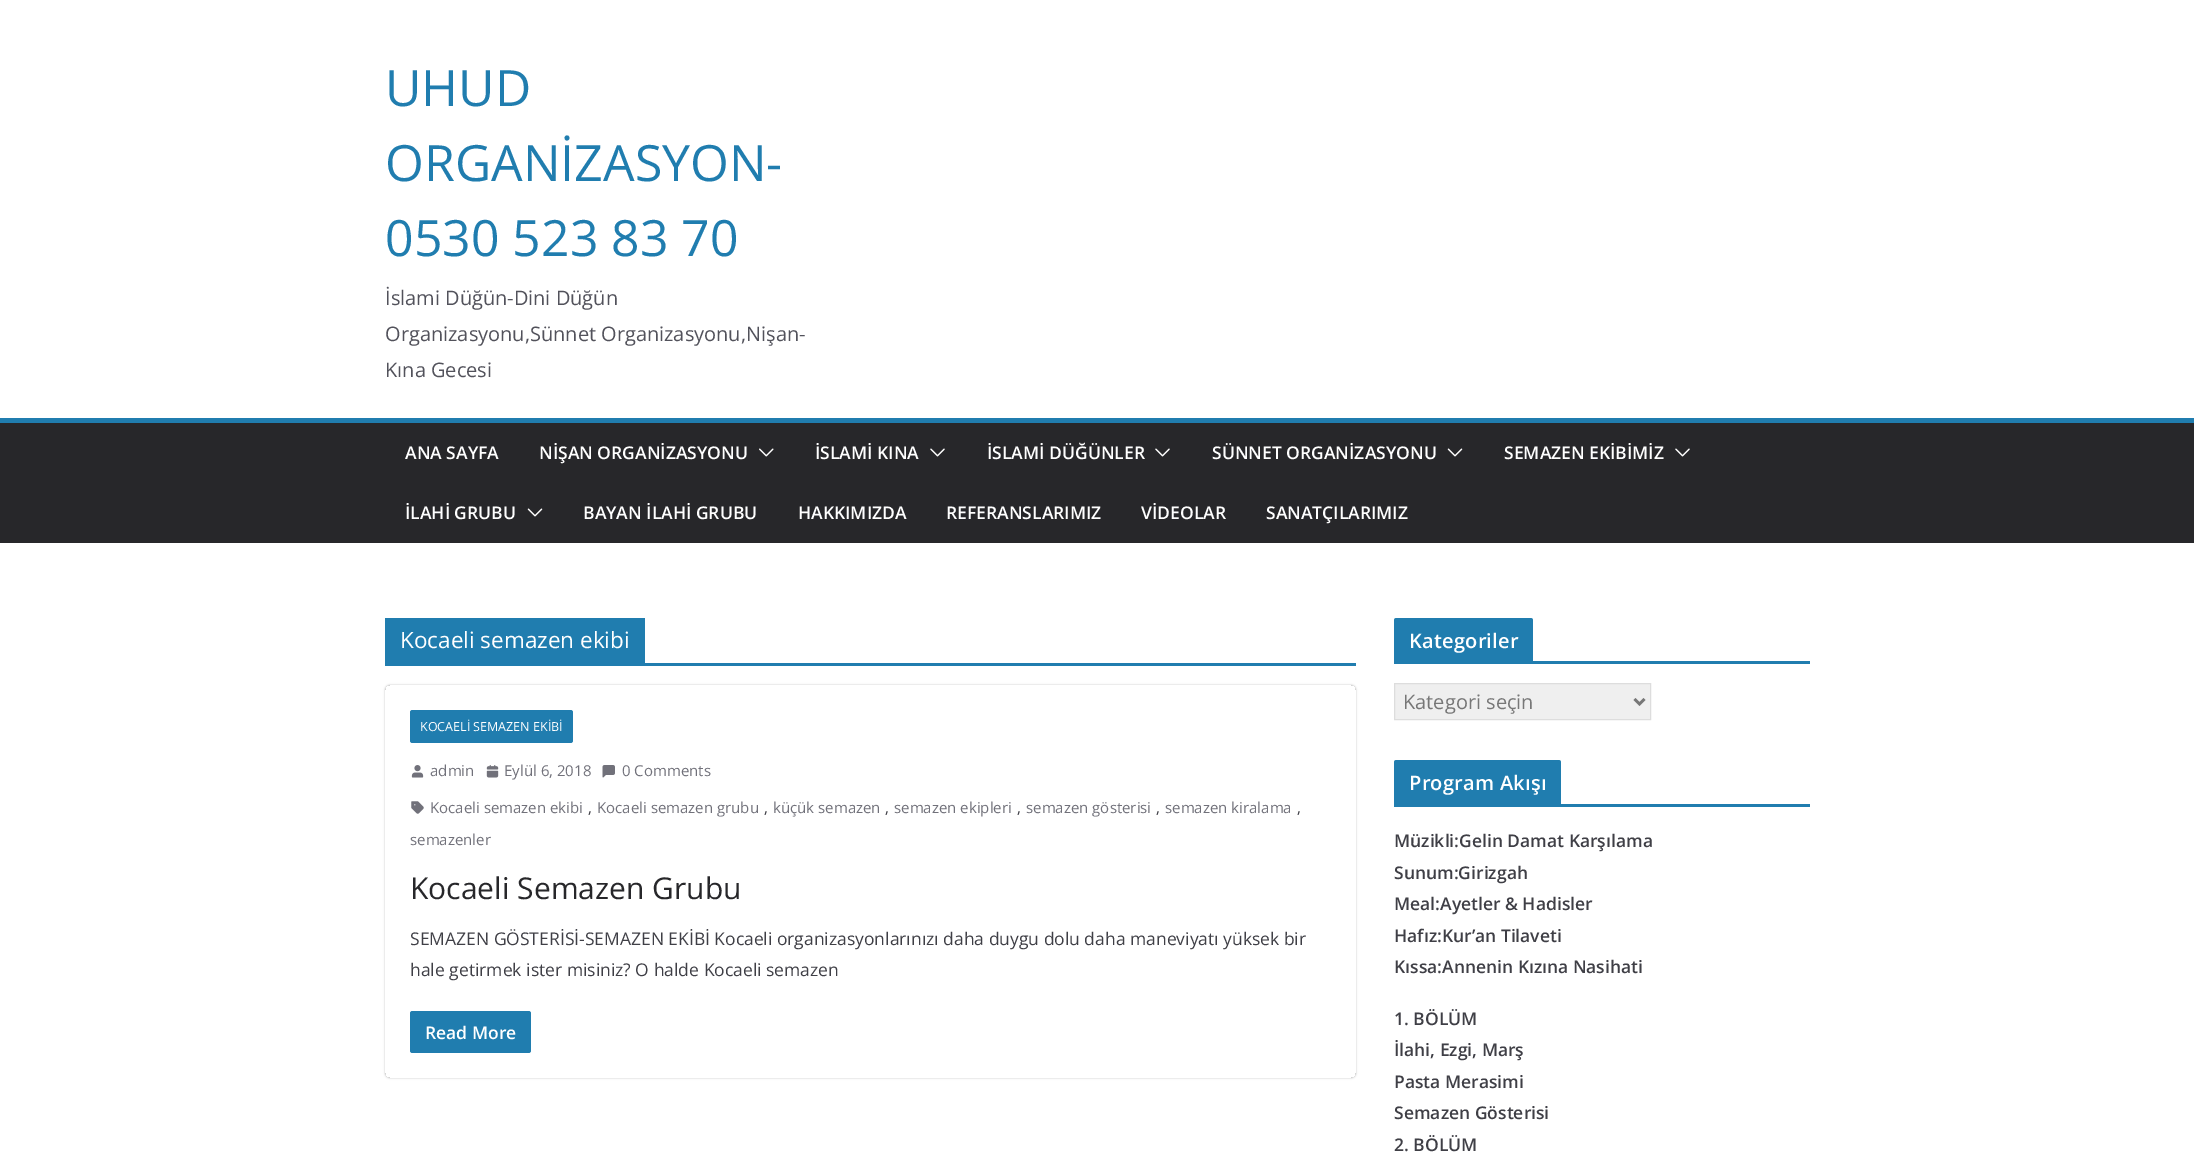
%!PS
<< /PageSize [2194 1156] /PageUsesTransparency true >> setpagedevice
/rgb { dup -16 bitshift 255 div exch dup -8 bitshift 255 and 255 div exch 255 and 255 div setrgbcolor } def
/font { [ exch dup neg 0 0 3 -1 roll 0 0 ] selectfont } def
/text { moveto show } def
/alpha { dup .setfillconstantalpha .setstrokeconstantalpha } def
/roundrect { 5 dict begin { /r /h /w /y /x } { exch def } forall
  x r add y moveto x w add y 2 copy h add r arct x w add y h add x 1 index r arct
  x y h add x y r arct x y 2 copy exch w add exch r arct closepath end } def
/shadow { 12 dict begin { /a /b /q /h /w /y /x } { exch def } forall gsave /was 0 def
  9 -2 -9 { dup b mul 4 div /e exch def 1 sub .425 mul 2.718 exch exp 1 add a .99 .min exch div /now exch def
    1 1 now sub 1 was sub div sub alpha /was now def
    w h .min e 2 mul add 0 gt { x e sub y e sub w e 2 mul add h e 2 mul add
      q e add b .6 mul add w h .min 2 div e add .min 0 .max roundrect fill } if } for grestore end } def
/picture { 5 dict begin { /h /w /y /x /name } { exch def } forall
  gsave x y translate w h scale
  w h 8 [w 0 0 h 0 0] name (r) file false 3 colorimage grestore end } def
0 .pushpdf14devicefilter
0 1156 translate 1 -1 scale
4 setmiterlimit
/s1 { /OpenSans-Regular 50 font 16#207DAF rgb } def
/s2 { /OpenSans-Regular 20 font 16#52525B rgb } def
/s3 { /OpenSans-SemiBold 17.5 font 16#FFFFFF rgb } def
/s4 { /OpenSans-Regular 22.5 font 16#FFFFFF rgb } def
/s5 { /OpenSans-Regular 12.5 font 16#FFFFFF rgb } def
/s6 { /OpenSans-Regular 15 font 16#71717A rgb } def
/s7 { /OpenSans-Regular 15 font 16#3F3F46 rgb } def
/s8 { /OpenSans-Regular 30 font 16#27272A rgb } def
/s9 { /OpenSans-Regular 17.5 font 16#3F3F46 rgb } def
/s10 { /OpenSans-Regular 20 font 16#777777 rgb } def
/s11 { /OpenSans-SemiBold 17.5 font 16#3F3F46 rgb } def
16#FFFFFF rgb
0 0 2194 1156 rectfill
s1
(UHUD) 385 106 text
(ORGANİZASYON-) 385 181 text
(0530 523 83 70) 385 256 text
s2
(İslami Düğün-Dini Düğün) 385 305 text
(Organizasyonu,Sünnet Organizasyonu,Nişan-) 385 341 text
(Kına Gecesi) 385 377 text
16#27272A rgb
0 423 2194 120 rectfill
16#207DAF rgb
0 418 2194 5 rectfill
s3
(ANA SAYFA) 405 459 text
(NİŞAN ORGANİZASYONU) 539 459 text
(pic1.raw) 759 448 15 9 picture
(İSLAMİ KINA) 815 459 text
(pic2.raw) 930 448 15 9 picture
(İSLAMİ DÜĞÜNLER) 987 459 text
(pic2.raw) 1155 448 15 9 picture
(SÜNNET ORGANİZASYONU) 1212 459 text
(pic3.raw) 1447 448 16 9 picture
(SEMAZEN EKİBİMİZ) 1504 459 text
(pic2.raw) 1675 448 15 9 picture
(İLAHİ GRUBU) 405 519 text
(pic3.raw) 527 508 16 9 picture
(BAYAN İLAHİ GRUBU) 583 519 text
(HAKKIMIZDA) 798 519 text
(REFERANSLARIMIZ) 946 519 text
(VİDEOLAR) 1141 519 text
(SANATÇILARIMIZ) 1266 519 text
16#207DAF rgb
385 663 971 3 rectfill
385 618 260 45 rectfill
s4
(Kocaeli semazen ekibi) 400 648 text
gsave
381 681 moveto 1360 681 lineto 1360 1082 lineto 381 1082 lineto closepath 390 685 moveto 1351 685 lineto 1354 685 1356 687 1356 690 curveto 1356 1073 lineto 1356 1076 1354 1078 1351 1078 curveto 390 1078 lineto 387 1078 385 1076 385 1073 curveto 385 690 lineto 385 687 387 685 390 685 curveto closepath eoclip newpath
16#000000 rgb
385 685 971 393 5 1 0.24 shadow
grestore
16#207DAF rgb
410 710 163 33 2.5 roundrect fill
s5
(KOCAELİ SEMAZEN EKİBİ) 420 731 text
(pic4.raw) 411 765 13 13 picture
s6
(admin) 430 776 text
(pic5.raw) 486 765 13 13 picture
(Eylül 6, 2018) 504 776 text
(pic6.raw) 602 765 13 13 picture
(0 Comments) 622 776 text
(pic7.raw) 411 801 13 13 picture
(Kocaeli semazen ekibi) 430 813 text
s7
(,) 588 813 text
s6
(Kocaeli semazen grubu) 597 813 text
s7
(,) 764 813 text
s6
(küçük semazen) 773 813 text
s7
(,) 885 813 text
s6
(semazen ekipleri) 894 813 text
s7
(,) 1017 813 text
s6
(semazen gösterisi) 1026 813 text
s7
(,) 1156 813 text
s6
(semazen kiralama) 1165 813 text
s7
(,) 1297 813 text
s6
(semazenler) 410 845 text
s8
(Kocaeli Semazen Grubu) 410 899 text
s9
(SEMAZEN GÖSTERİSİ-SEMAZEN EKİBİ Kocaeli organizasyonlarınızı daha duygu dolu daha maneviyatı yüksek bir) 410 945 text
(hale getirmek ister misiniz? O halde Kocaeli semazen) 410 976 text
16#207DAF rgb
410 1011 121 42 2.5 roundrect fill
s3
(Read More) 425 1039 text
16#207DAF rgb
1394 661 416 3 rectfill
1396.5 618 moveto 1530.5 618 lineto 1532 618 1533 619 1533 620.5 curveto 1533 661 lineto 1394 661 lineto 1394 620.5 lineto 1394 619 1395 618 1396.5 618 curveto closepath fill
/OpenSans-SemiBold 20 font
16#FFFFFF rgb
1409 648 moveto 0.25 0 (Kategoriler) ashow
16#EFEFEF rgb
1394.5 683.5 moveto 1650.5 683.5 lineto 1650.5 719.5 lineto 1394.5 719.5 lineto closepath gsave fill grestore
16#DDDDDD rgb
stroke
16#777777 rgb
2.5 setlinewidth
1634.5 699 moveto 1639.5 704 lineto 1644.5 699 lineto stroke
s10
(Kategori seçin) 1403 709 text
16#207DAF rgb
1394 804 416 3 rectfill
1396.5 760 moveto 1558.5 760 lineto 1560 760 1561 761 1561 762.5 curveto 1561 804 lineto 1394 804 lineto 1394 762.5 lineto 1394 761 1395 760 1396.5 760 curveto closepath fill
/OpenSans-SemiBold 20 font
16#FFFFFF rgb
1409 790 moveto 0.25 0 (Program Akışı) ashow
s11
(Müzikli:Gelin Damat Karşılama) 1394 847 text
(Sunum:Girizgah) 1394 879 text
(Meal:Ayetler & Hadisler) 1394 910 text
(Hafız:Kur’an Tilaveti) 1394 942 text
(Kıssa:Annenin Kızına Nasihati) 1394 973 text
(1. BÖLÜM) 1394 1025 text
(İlahi, Ezgi, Marş) 1394 1056 text
(Pasta Merasimi) 1394 1088 text
(Semazen Gösterisi) 1394 1119 text
(2. BÖLÜM) 1394 1151 text
.poppdf14devicefilter showpage
